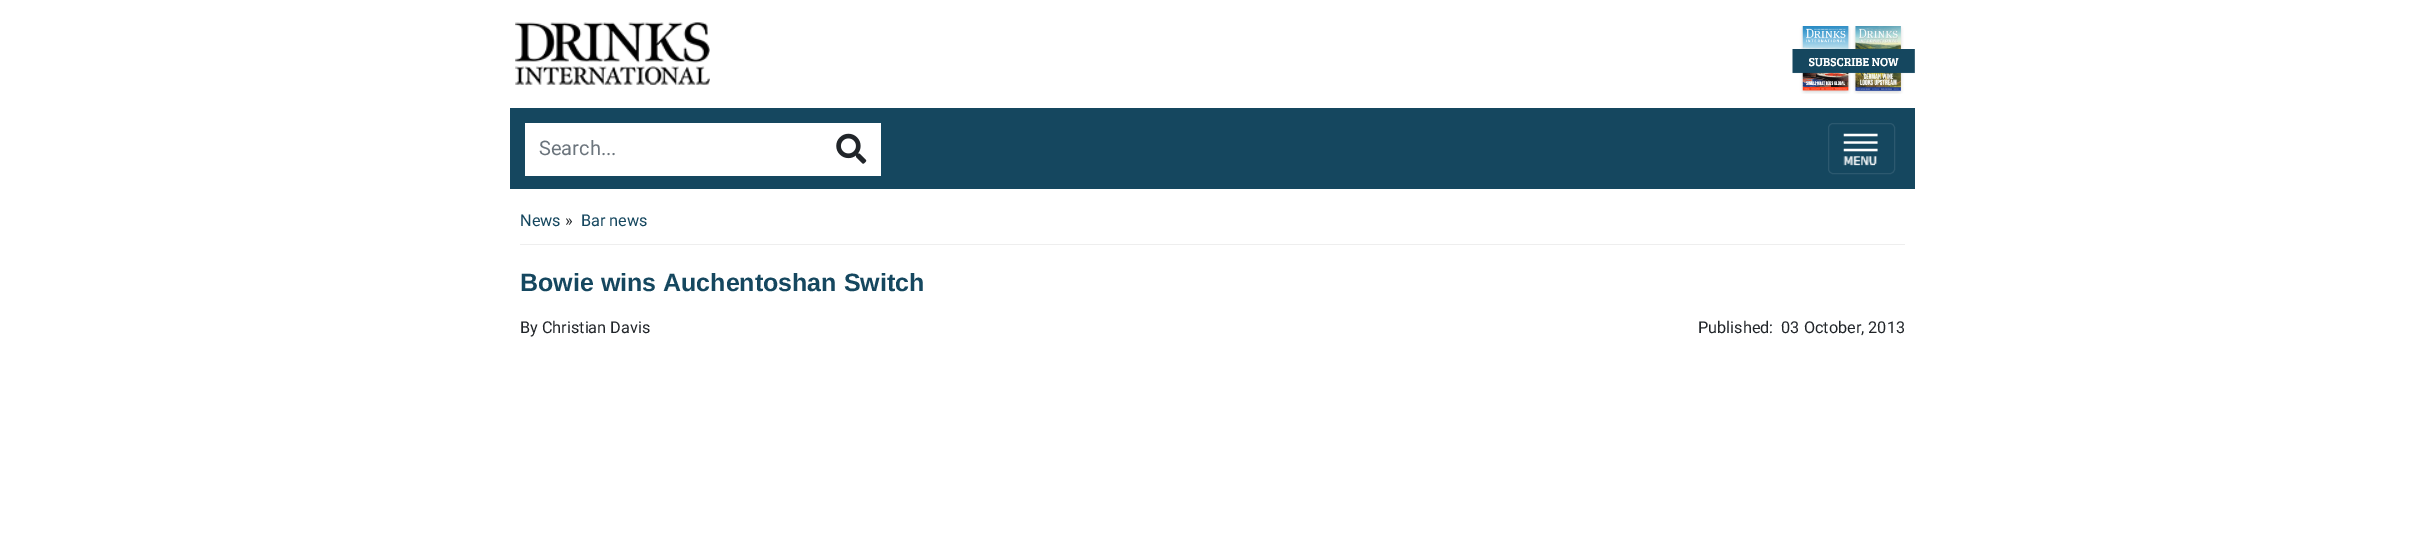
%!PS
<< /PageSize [2424 538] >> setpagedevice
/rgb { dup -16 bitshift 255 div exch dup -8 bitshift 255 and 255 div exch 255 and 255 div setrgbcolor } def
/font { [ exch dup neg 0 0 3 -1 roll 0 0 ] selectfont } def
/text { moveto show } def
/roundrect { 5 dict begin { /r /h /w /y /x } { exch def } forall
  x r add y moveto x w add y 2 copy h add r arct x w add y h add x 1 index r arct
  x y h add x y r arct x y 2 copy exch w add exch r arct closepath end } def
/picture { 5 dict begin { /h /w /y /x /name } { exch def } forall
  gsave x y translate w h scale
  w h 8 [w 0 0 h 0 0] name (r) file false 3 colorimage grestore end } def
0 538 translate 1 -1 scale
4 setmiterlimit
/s1 { /Roboto-Regular 20 font 16#6C757D rgb } def
/s2 { /Roboto-Regular 16.25 font 16#15475F rgb } def
/s3 { /Roboto-Regular 16.25 font 16#212529 rgb } def
/s4 { /LiberationSans-Bold 25 font 16#15475F rgb } def
16#FFFFFF rgb
0 0 2424 538 rectfill
(pic1.raw) 515 22 195 63 picture
(pic2.raw) 1792 26 123 68 picture
16#15475F rgb
510 108 1405 81 rectfill
16#FFFFFF rgb
525 123 356 53 rectfill
s1
(Search...) 539 155 text
(pic3.raw) 836 133 31 31 picture
16#2C596F rgb
1828.5 123.5 66 50 4.5 roundrect stroke
(pic4.raw) 1843 133 35 33 picture
16#EEEEEE rgb
520 244 1385 1 rectfill
s2
(News) 520 226 text
s3
(») 565 226 text
s2
(Bar news) 581 226 text
s4
(Bowie wins Auchentoshan Switch) 520 291 text
s3
(By Christian Davis) 520 333 text
(Published:  03 October, 2013) 1698 333 text
showpage
